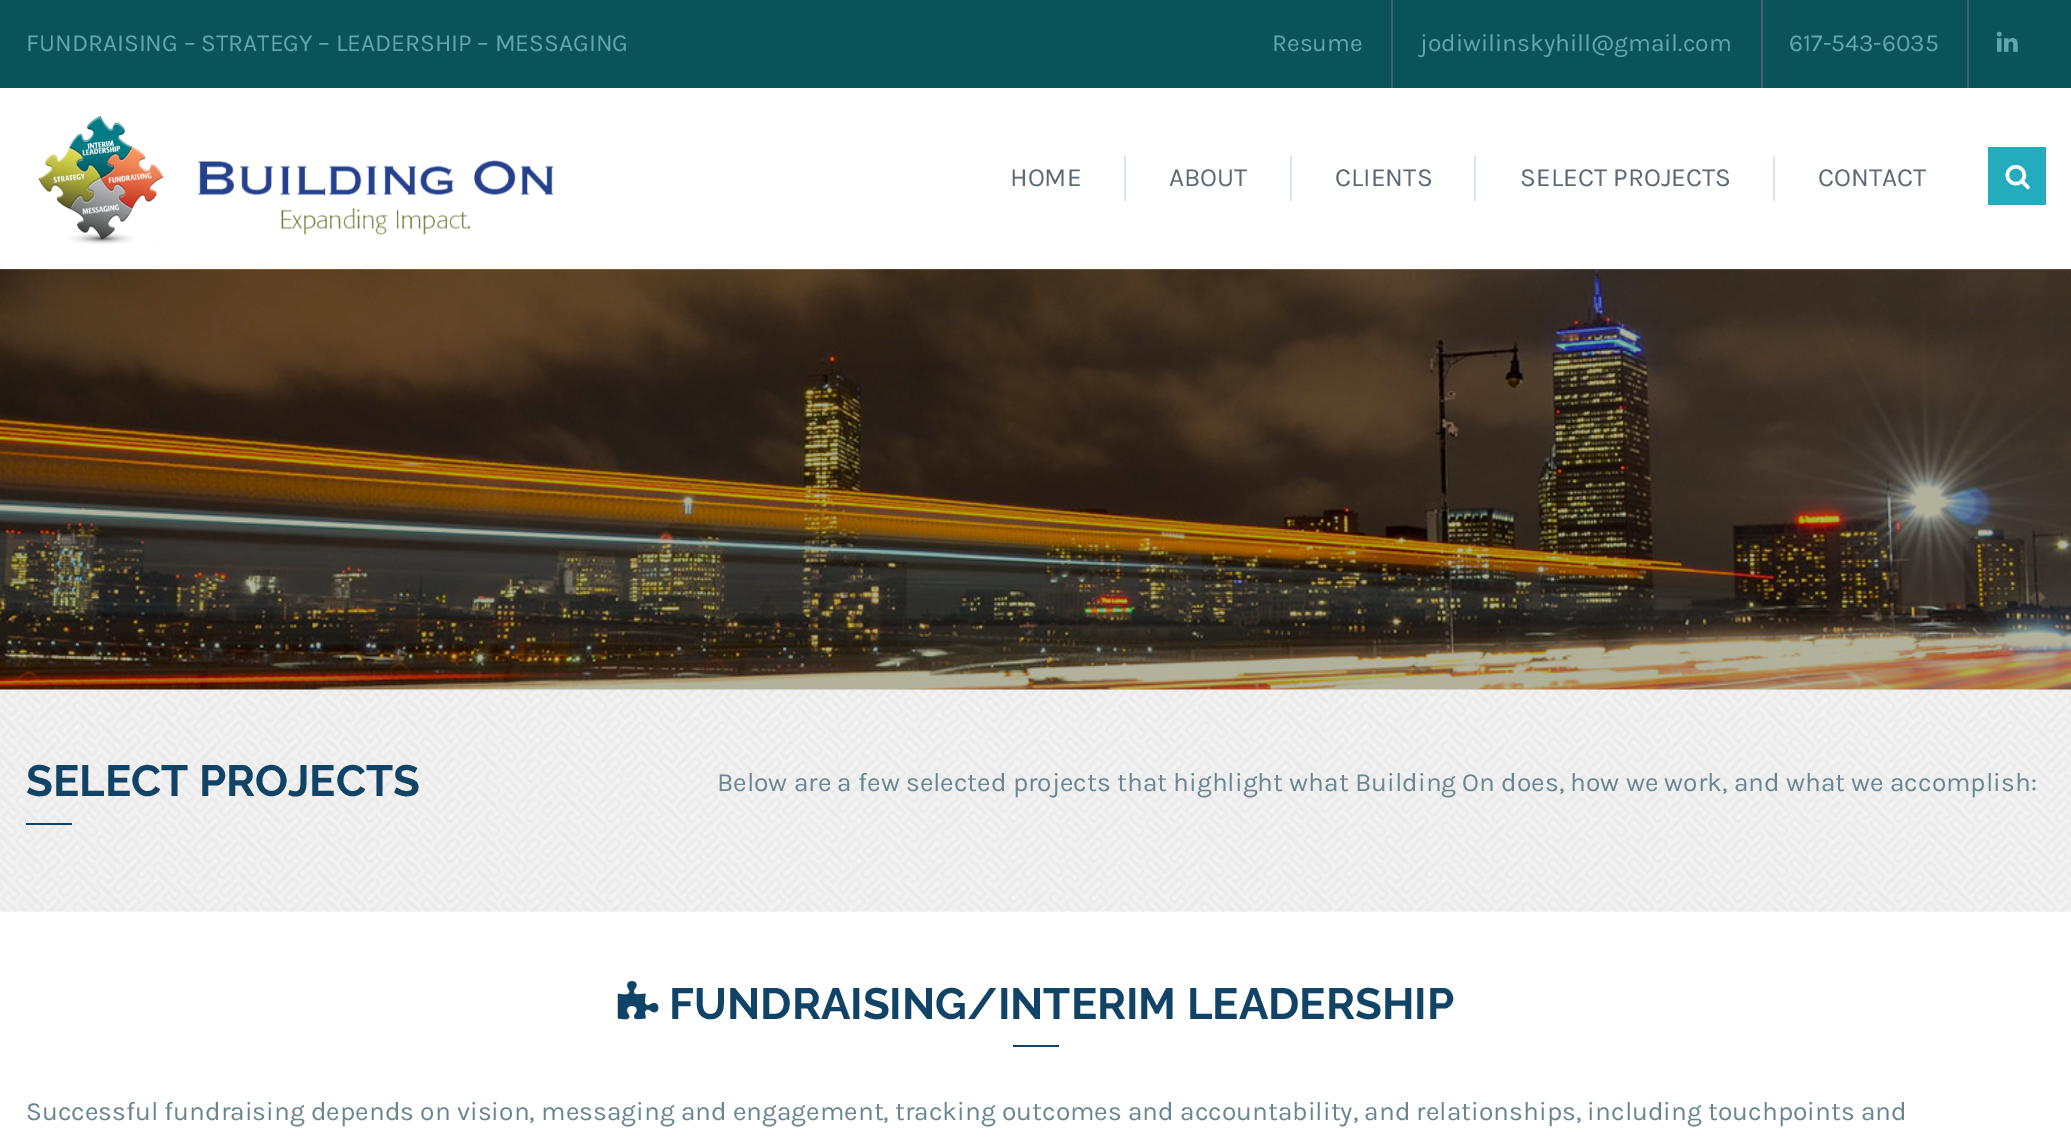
%!PS
<< /PageSize [2071 1139] >> setpagedevice
/rgb { dup -16 bitshift 255 div exch dup -8 bitshift 255 and 255 div exch 255 and 255 div setrgbcolor } def
/font { [ exch dup neg 0 0 3 -1 roll 0 0 ] selectfont } def
/text { moveto show } def
/picture { 5 dict begin { /h /w /y /x /name } { exch def } forall
  gsave x y translate w h scale
  w h 8 [w 0 0 h 0 0] name (r) file false 3 colorimage grestore end } def
0 1139 translate 1 -1 scale
4 setmiterlimit
/s1 { /Karla-Regular 24.5 font 16#62A7AE rgb } def
/s2 { /Karla-Regular 26.25 font 16#5B6A75 rgb } def
/s3 { /Raleway-Bold 43.75 font 16#114366 rgb } def
/s4 { /Karla-Regular 26.25 font 16#698591 rgb } def
16#FFFFFF rgb
0 0 2071 1139 rectfill
16#0B535A rgb
0 0 2071 88 rectfill
s1
(FUNDRAISING – STRATEGY – LEADERSHIP – MESSAGING) 26 51 text
(Resume) 1272 51 text
16#455E77 rgb
1391 0 2 88 rectfill
s1
(jodiwilinskyhill@gmail.com) 1420 51 text
16#455E77 rgb
1761 0 2 88 rectfill
s1
(617-543-6035) 1789 51 text
16#455E77 rgb
1967 0 2 88 rectfill
(pic1.raw) 1996 31 22 21 picture
(pic2.raw) 38 115 516 130 picture
s2
(HOME) 1010 186 text
16#D9E6EB rgb
1124 156 2 45 rectfill
s2
(ABOUT) 1169 186 text
16#D9E6EB rgb
1290 156 2 45 rectfill
s2
(CLIENTS) 1335 186 text
16#D9E6EB rgb
1474 156 2 45 rectfill
s2
(SELECT PROJECTS) 1520 186 text
16#D9E6EB rgb
1773 156 2 45 rectfill
s2
(CONTACT) 1818 186 text
16#22ACBD rgb
1988 147 58 58 rectfill
(pic3.raw) 2005 164 25 26 picture
(pic4.raw) 0 269 2071 421 picture
(pic5.raw) 0 689 2071 223 picture
s3
(SELECT PROJECTS) 26 796 text
26 823 46 2 rectfill
s4
(Below are a few selected projects that highlight what Building On does, how we work, and what we accomplish:) 717 791 text
(pic6.raw) 617 981 42 39 picture
s3
(FUNDRAISING/INTERIM LEADERSHIP) 669 1019 text
1013 1045 46 2 rectfill
s4
(Successful fundraising depends on vision, messaging and engagement, tracking outcomes and accountability, and relationships, including touchpoints and) 26 1120 text
showpage
